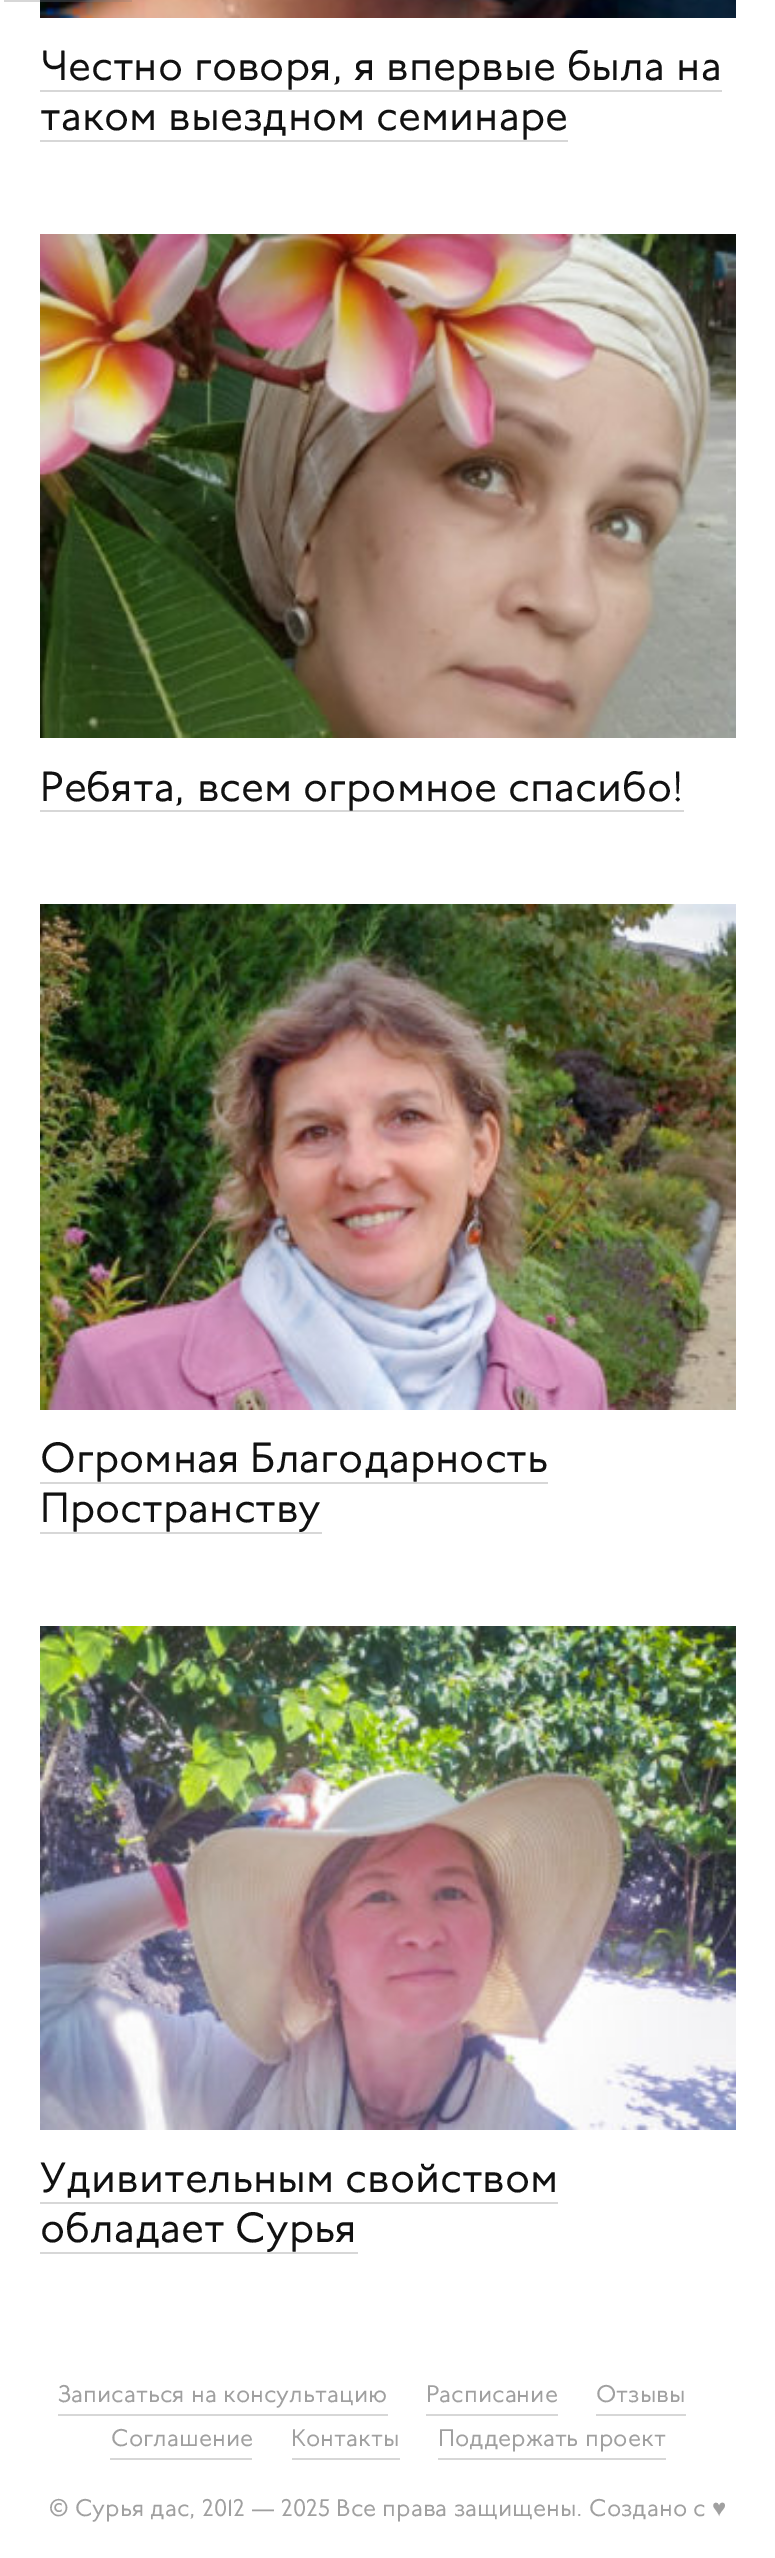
%!PS
<< /PageSize [775 2558] /PageUsesTransparency true >> setpagedevice
/rgb { dup -16 bitshift 255 div exch dup -8 bitshift 255 and 255 div exch 255 and 255 div setrgbcolor } def
/font { [ exch dup neg 0 0 3 -1 roll 0 0 ] selectfont } def
/text { moveto show } def
/alpha { dup .setfillconstantalpha .setstrokeconstantalpha } def
/picture { 5 dict begin { /h /w /y /x /name } { exch def } forall
  gsave x y translate w h scale
  w h 8 [w 0 0 h 0 0] name (r) file false 3 colorimage grestore end } def
0 .pushpdf14devicefilter
0 2558 translate 1 -1 scale
4 setmiterlimit
/s1 { /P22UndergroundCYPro-Regular 42 font 16#111111 rgb } def
/s2 { /P22UndergroundCYPro-Regular 24 font 16#A0A0A0 rgb } def
/s3 { /LiberationSerif-Regular 24 font 16#A0A0A0 rgb } def
16#FFFFFF rgb
0 0 775 2558 rectfill
(pic1.raw) 40 0 696 18 picture
0.3 alpha
16#7B7B7B rgb
4 0 128 2 rectfill
1 alpha
s1
(Честно говоря, я впервые была на) 40 80 text
16#D7D7D7 rgb
40 90 682 2 rectfill
s1
(таком выездном семинаре) 40 130 text
16#D7D7D7 rgb
40 140 528 2 rectfill
(pic2.raw) 40 234 696 504 picture
40 810 644 2 rectfill
s1
(Ребята, всем огромное спасибо!) 40 801 text
(pic3.raw) 40 904 696 506 picture
(Огромная Благодарность) 40 1472 text
16#D7D7D7 rgb
40 1482 508 2 rectfill
40 1532 282 2 rectfill
s1
(Пространству) 40 1522 text
(pic4.raw) 40 1626 696 504 picture
(Удивительным свойством) 40 2192 text
16#D7D7D7 rgb
40 2202 518 2 rectfill
40 2252 318 2 rectfill
s1
(обладает Сурья) 40 2242 text
16#D7D7D7 rgb
58 2414 330 2 rectfill
s2
(Записаться на консультацию) 58 2402 text
16#D7D7D7 rgb
426 2414 132 2 rectfill
s2
(Расписание) 426 2402 text
16#D7D7D7 rgb
596 2414 90 2 rectfill
s2
(Отзывы) 596 2402 text
16#D7D7D7 rgb
110 2458 142 2 rectfill
s2
(Соглашение) 111 2446 text
16#D7D7D7 rgb
292 2458 108 2 rectfill
s2
(Контакты) 291 2446 text
16#D7D7D7 rgb
438 2458 228 2 rectfill
s2
(Поддержать проект) 438 2446 text
(© Сурья дас, 2012 — 2025 Все права защищены. Создано с) 49 2516 text
s3
(♥) 712 2516 text
.poppdf14devicefilter showpage
